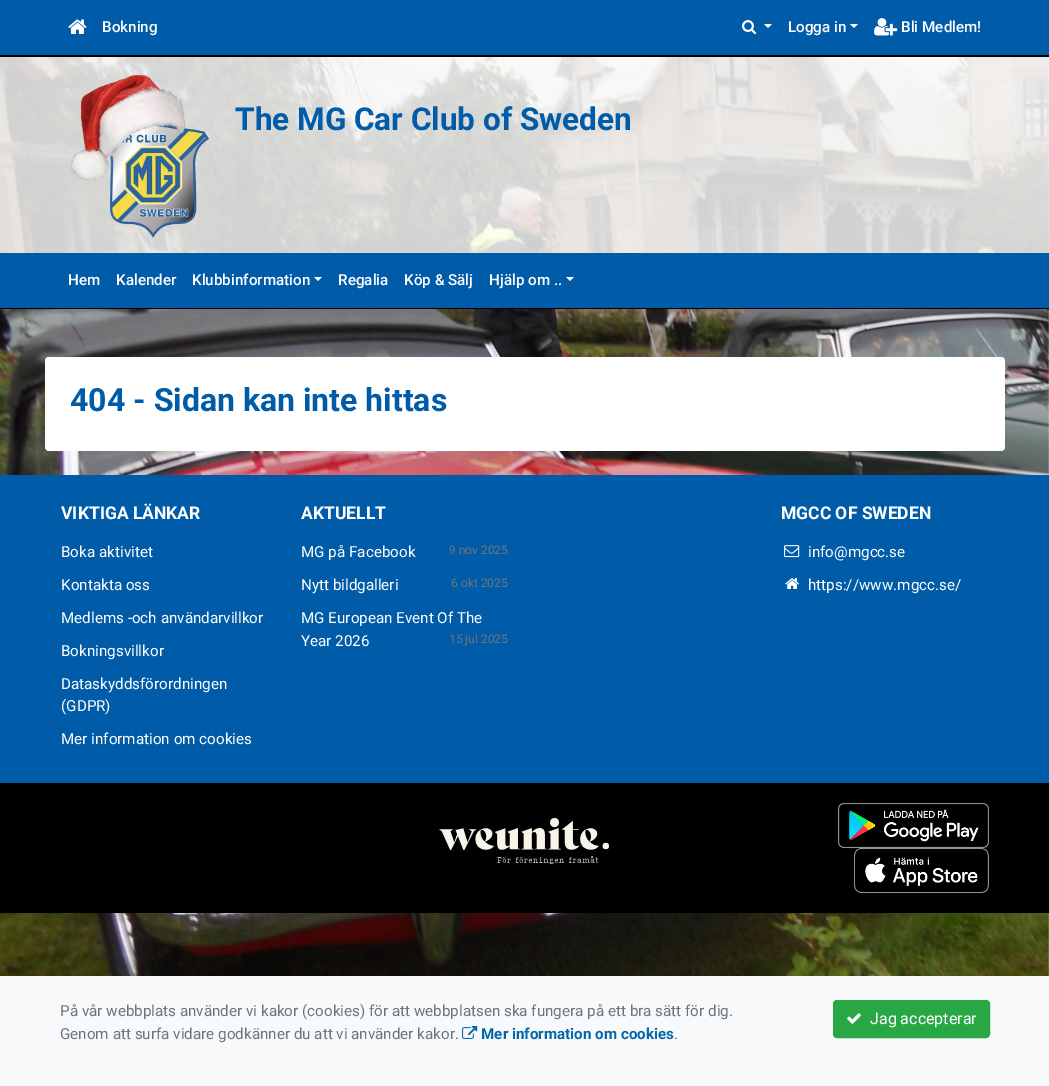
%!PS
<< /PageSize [1049 1086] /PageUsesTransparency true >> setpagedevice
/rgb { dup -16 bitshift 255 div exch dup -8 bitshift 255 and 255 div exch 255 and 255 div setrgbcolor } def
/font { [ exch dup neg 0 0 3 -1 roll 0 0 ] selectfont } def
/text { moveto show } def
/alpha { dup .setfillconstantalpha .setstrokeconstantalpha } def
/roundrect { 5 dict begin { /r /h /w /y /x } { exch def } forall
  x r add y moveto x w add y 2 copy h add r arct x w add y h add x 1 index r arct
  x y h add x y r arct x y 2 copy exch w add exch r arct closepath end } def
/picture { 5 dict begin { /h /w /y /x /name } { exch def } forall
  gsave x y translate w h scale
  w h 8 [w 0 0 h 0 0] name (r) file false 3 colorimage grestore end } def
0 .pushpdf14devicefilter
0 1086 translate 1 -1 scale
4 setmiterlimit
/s1 { /Roboto-Medium 15.2 font 16#FFFFFF rgb } def
/s2 { /Roboto-Bold 31.5 font 16#005CA9 rgb } def
/s3 { /Roboto-Bold 32 font 16#005CA9 rgb } def
/s4 { /Roboto-Bold 17.5 font 16#FFFFFF rgb } def
/s5 { /Roboto-Regular 15.2 font 16#FFFFFF rgb } def
/s6 { /Roboto-Regular 12 font 16#6C757D rgb } def
/s7 { /Roboto-Regular 15.2 font 16#6C757D rgb } def
/s8 { /Roboto-Bold 15.2 font 16#0366A9 rgb } def
/s9 { /Roboto-Regular 16 font 16#FFFFFF rgb } def
16#FFFFFF rgb
0 0 1049 1086 rectfill
(pic1.raw) 0 57 1049 919 picture
16#005CA9 rgb
0 0 1049 55 rectfill
16#000000 rgb
0 55 1049 2 rectfill
(pic2.raw) 68 19 19 15 picture
s1
(Bokning) 102 32 text
(pic3.raw) 742 20 15 15 picture
764 24 moveto 772 24 lineto 768 28 lineto closepath fill
(Logga in) 788 32 text
850 24 moveto 858 24 lineto 854 28 lineto closepath fill
(pic4.raw) 874 18 24 18 picture
(Bli Medlem!) 901 32 text
0.8 alpha
0 57 1049 196 rectfill
1 alpha
(pic5.raw) 71 74 138 164 picture
s2
(The MG Car Club of Sweden) 235 130 text
0 253 1049 55 rectfill
s1
(Hem) 68 285 text
(Kalender) 116 285 text
(Klubbinformation) 192 285 text
314 277 moveto 322 277 lineto 318 281 lineto closepath fill
(Regalia) 338 285 text
(Köp & Sälj) 404 285 text
(Hjälp om ..) 489 285 text
566 277 moveto 574 277 lineto 570 281 lineto closepath fill
16#000000 rgb
0 308 1049 1 rectfill
16#FFFFFF rgb
45 357 960 94 4 roundrect fill
s3
(404 - Sidan kan inte hittas) 70 411 text
0 475 1049 308 rectfill
s4
(VIKTIGA LÄNKAR) 61 519 text
s5
(Boka aktivitet) 61 557 text
(Kontakta oss) 61 590 text
(Medlems -och användarvillkor) 61 623 text
(Bokningsvillkor) 61 656 text
(Dataskyddsförordningen) 61 689 text
(\(GDPR\)) 61 711 text
(Mer information om cookies) 61 744 text
s4
(AKTUELLT) 301 519 text
s5
(MG på Facebook) 301 557 text
s6
(9 nov 2025) 449 554 text
s5
(Nytt bildgalleri) 301 590 text
s6
(6 okt 2025) 451 587 text
s5
(MG European Event Of The) 301 623 text
(Year 2026) 301 646 text
s6
(15 jul 2025) 449 643 text
s4
(MGCC OF SWEDEN) 781 519 text
(pic6.raw) 784 545 16 13 picture
s5
(info@mgcc.se) 808 557 text
(pic7.raw) 785 578 14 11 picture
(https://www.mgcc.se/) 808 590 text
16#000000 rgb
0 783 1049 130 rectfill
(pic8.raw) 439 818 170 46 picture
(pic9.raw) 838 803 151 45 picture
(pic10.raw) 854 848 135 45 picture
16#F8F9FA rgb
0 976 1049 110 rectfill
s7
(På vår webbplats använder vi kakor \(cookies\) för att webbplatsen ska fungera på ett bra sätt för dig.) 60 1016 text
(Genom att surfa vidare godkänner du att vi använder kakor.) 60 1039 text
(pic11.raw) 462 1026 16 13 picture
s8
(Mer information om cookies) 481 1039 text
s7
(.) 674 1039 text
16#28A745 rgb
833.5 1000.5 156 37 3.5 roundrect gsave fill grestore
stroke
(pic12.raw) 847 1013 14 11 picture
s9
(Jag accepterar) 870 1024 text
.poppdf14devicefilter showpage
